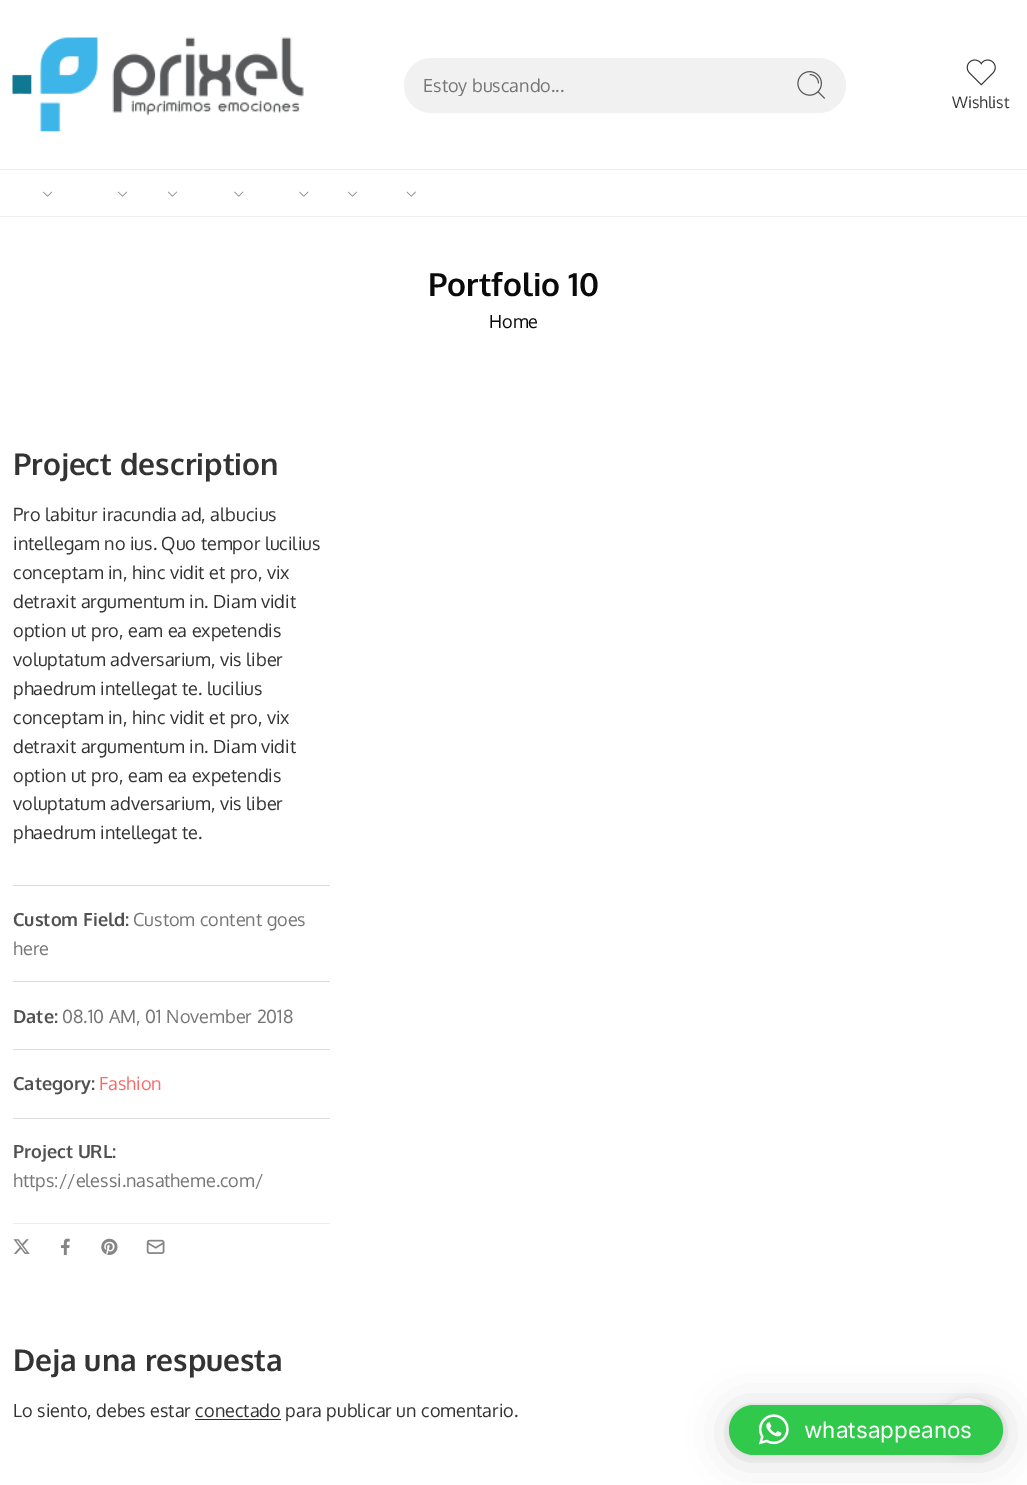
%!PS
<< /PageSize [1027 1485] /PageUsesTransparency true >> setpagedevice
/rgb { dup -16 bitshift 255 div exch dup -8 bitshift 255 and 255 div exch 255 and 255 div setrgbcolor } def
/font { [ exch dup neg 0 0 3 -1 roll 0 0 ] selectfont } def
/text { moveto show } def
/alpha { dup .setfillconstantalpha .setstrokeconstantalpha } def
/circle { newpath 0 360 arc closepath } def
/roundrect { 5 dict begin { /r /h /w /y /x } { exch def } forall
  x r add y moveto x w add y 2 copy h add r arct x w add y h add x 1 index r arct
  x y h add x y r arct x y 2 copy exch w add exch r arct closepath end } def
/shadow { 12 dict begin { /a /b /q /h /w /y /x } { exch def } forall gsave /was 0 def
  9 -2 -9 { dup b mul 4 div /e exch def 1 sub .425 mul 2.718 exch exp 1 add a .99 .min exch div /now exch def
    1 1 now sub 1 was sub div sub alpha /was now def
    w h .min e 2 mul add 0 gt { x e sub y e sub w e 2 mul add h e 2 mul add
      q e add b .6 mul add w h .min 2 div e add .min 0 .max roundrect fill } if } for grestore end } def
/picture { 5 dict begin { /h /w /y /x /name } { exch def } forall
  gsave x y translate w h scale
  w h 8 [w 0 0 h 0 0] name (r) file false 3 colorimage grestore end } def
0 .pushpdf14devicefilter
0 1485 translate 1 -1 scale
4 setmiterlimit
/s1 { /Oxygen-Regular 18.1 font 16#767676 rgb } def
/s2 { /Oxygen-Regular 16 font 16#333333 rgb } def
/s3 { /Oxygen-Bold 31.75 font 16#0A0A0A rgb } def
/s4 { /Oxygen-Regular 18.1 font 16#0A0A0A rgb } def
/s5 { /Oxygen-Bold 30 font 16#333333 rgb } def
/s6 { /Oxygen-Regular 18.1 font 16#333333 rgb } def
/s7 { /Oxygen-Bold 18.1 font 16#515151 rgb } def
/s8 { /Oxygen-Regular 18.1 font 16#F76B6A rgb } def
/s9 { /Inter-Regular 22.5 font 16#FFFFFF rgb } def
16#FFFFFF rgb
0 0 1027 1485 rectfill
(pic1.raw) 12 37 292 95 picture
16#F1F1F1 rgb
404 58 442 55 27.5 roundrect fill
gsave
423 74 336 22 rectclip
s1
(Estoy buscando...) 423 92 text
grestore
(pic2.raw) 797 71 29 28 picture
(pic3.raw) 966 59 30 27 picture
s2
(Wishlist) 952 108 text
16#EFEFEF rgb
0 169 1027 1 rectfill
0 216 1027 1 rectfill
(pic4.raw) 42 191 10 6 picture
(pic4.raw) 117 191 10 6 picture
(pic4.raw) 167 191 10 6 picture
(pic5.raw) 234 191 10 6 picture
(pic5.raw) 299 191 10 6 picture
(pic4.raw) 347 191 10 6 picture
(pic6.raw) 406 191 10 6 picture
s3
(Portfolio 10) 428 296 text
s4
(Home) 489 328 text
s5
(Project description) 13 475 text
s6
(Pro labitur iracundia ad, albucius) 13 521 text
(intellegam no ius. Quo tempor lucilius) 13 550 text
(conceptam in, hinc vidit et pro, vix) 13 579 text
(detraxit argumentum in. Diam vidit) 13 608 text
(option ut pro, eam ea expetendis) 13 637 text
(voluptatum adversarium, vis liber) 13 666 text
(phaedrum intellegat te. lucilius) 13 695 text
(conceptam in, hinc vidit et pro, vix) 13 724 text
(detraxit argumentum in. Diam vidit) 13 753 text
(option ut pro, eam ea expetendis) 13 782 text
(voluptatum adversarium, vis liber) 13 810 text
(phaedrum intellegat te.) 13 839 text
16#DDDDDD rgb
13 885 317 1 rectfill
s7
(Custom Field:) 13 926 text
s1
(Custom content goes) 133 926 text
(here) 13 955 text
16#DDDDDD rgb
13 981 317 1 rectfill
s7
(Date:) 13 1023 text
s1
(08.10 AM, 01 November 2018) 62 1023 text
16#DDDDDD rgb
13 1049 317 1 rectfill
s7
(Category:) 13 1090 text
s8
(Fashion) 99 1090 text
16#DDDDDD rgb
13 1118 317 1 rectfill
s7
(Project URL:) 13 1158 text
s1
(https://elessi.nasatheme.com/) 13 1187 text
16#EEEEEE rgb
13 1223 317 1 rectfill
(pic7.raw) 13 1239 17 15 picture
(pic8.raw) 60 1238 10 18 picture
(pic9.raw) 101 1238 17 17 picture
(pic10.raw) 146 1239 19 15 picture
s5
(Deja una respuesta) 13 1371 text
s6
(Lo siento, debes estar conectado para publicar un comentario.) 13 1417 text
195 1419 86 1 rectfill
16#000000 rgb
940 1398 59 58 29 6 0.1 shadow
16#FFFFFF rgb
968 1426 28 circle fill
16#000000 rgb
729 1408 274 50 25 20 0.16 shadow
729 1406 274 50 25 4 0.06 shadow
16#30C94B rgb
729 1405 274 50 25 roundrect fill
(pic11.raw) 758 1414 31 31 picture
s9
(whatsappeanos) 804 1438 text
.poppdf14devicefilter showpage
